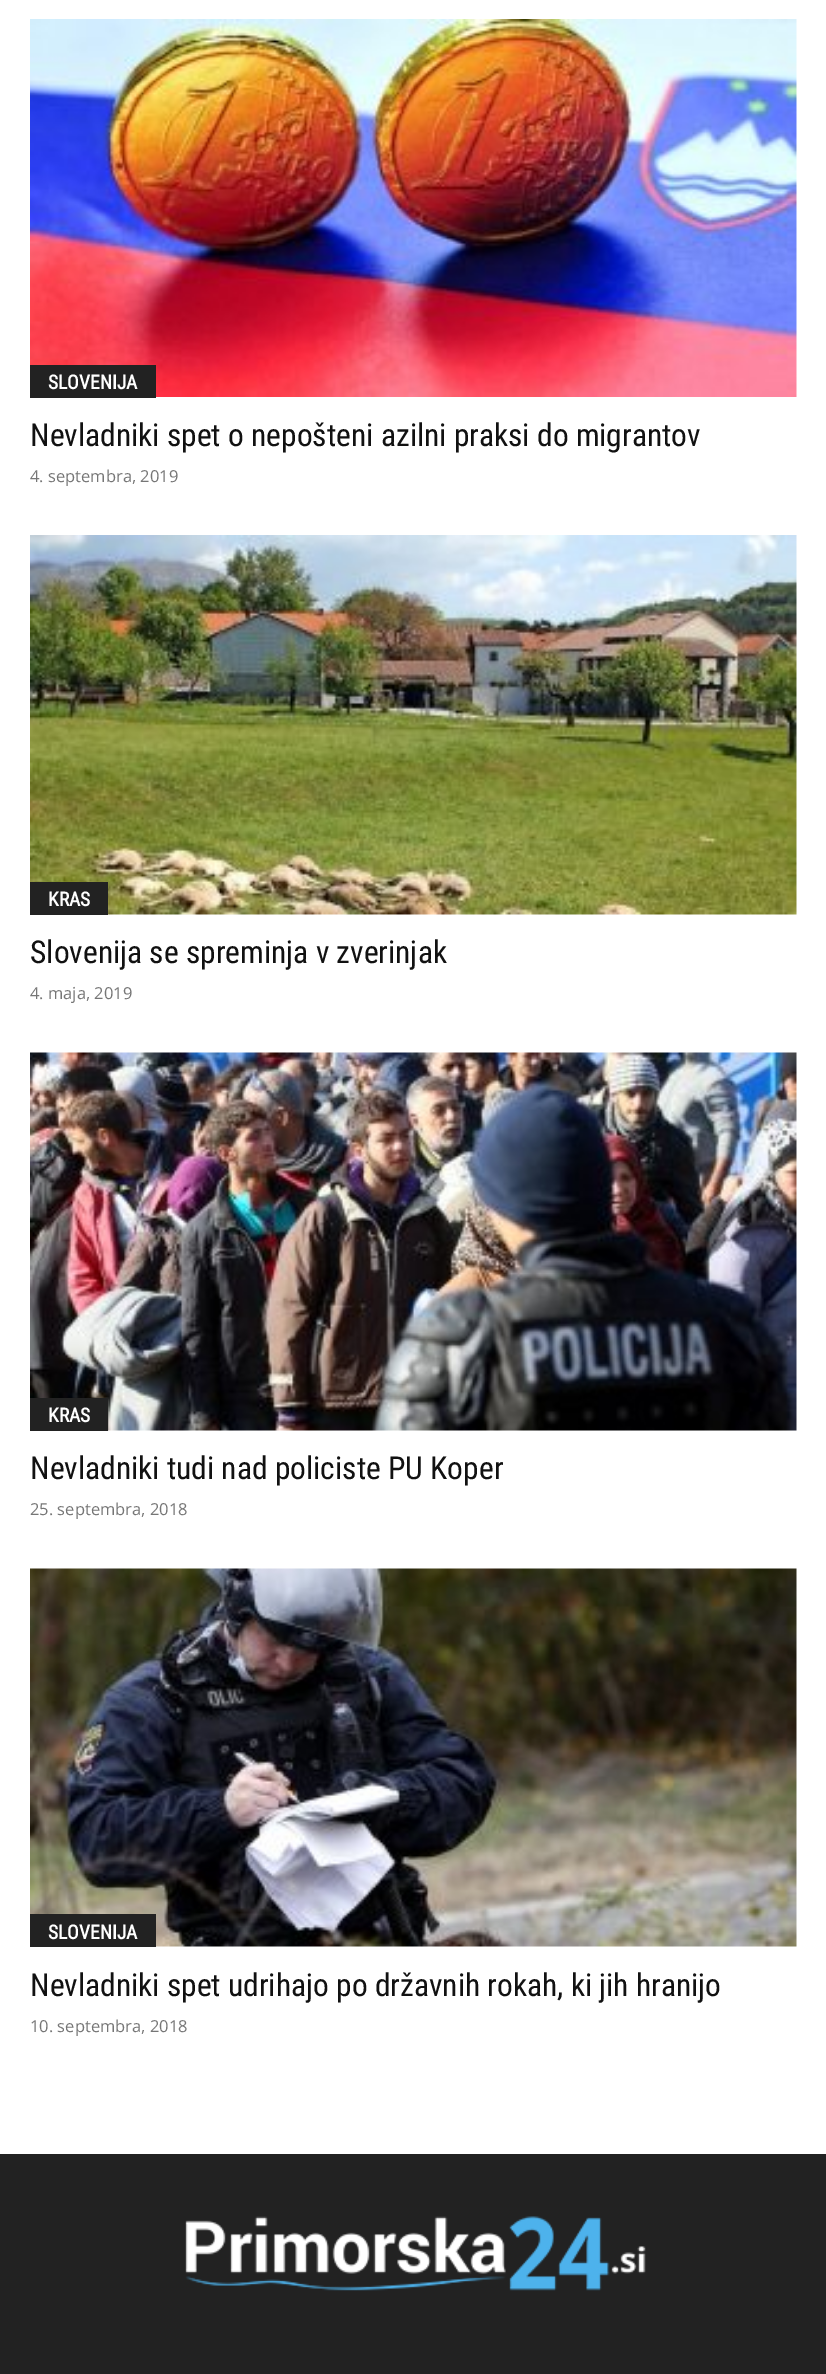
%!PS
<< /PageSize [826 2374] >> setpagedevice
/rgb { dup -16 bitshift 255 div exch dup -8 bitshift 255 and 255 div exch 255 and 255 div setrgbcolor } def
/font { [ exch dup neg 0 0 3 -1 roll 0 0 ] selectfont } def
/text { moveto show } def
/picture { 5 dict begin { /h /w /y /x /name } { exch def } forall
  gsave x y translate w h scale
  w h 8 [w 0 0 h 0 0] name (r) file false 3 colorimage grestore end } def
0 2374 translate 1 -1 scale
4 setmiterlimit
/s1 { /RobotoCondensed-Bold 19.5 font 16#FFFFFF rgb } def
/s2 { /RobotoCondensed-Regular 31.5 font 16#111111 rgb } def
/s3 { /OpenSans-Regular 16.5 font 16#767676 rgb } def
16#FFFFFF rgb
0 0 826 2374 rectfill
(pic1.raw) 30 19 767 378 picture
16#222222 rgb
30 365 126 33 rectfill
s1
(SLOVENIJA) 48 389 text
s2
(Nevladniki spet o nepošteni azilni praksi do migrantov) 30 446 text
s3
(4. septembra, 2019) 30 482 text
(pic2.raw) 30 535 767 380 picture
16#222222 rgb
30 882 78 33 rectfill
s1
(KRAS) 48 906 text
s2
(Slovenija se spreminja v zverinjak) 30 963 text
s3
(4. maja, 2019) 30 999 text
(pic3.raw) 30 1052 767 379 picture
16#222222 rgb
30 1398 78 33 rectfill
s1
(KRAS) 48 1422 text
s2
(Nevladniki tudi nad policiste PU Koper) 30 1479 text
s3
(25. septembra, 2018) 30 1515 text
(pic4.raw) 30 1568 767 379 picture
16#222222 rgb
30 1914 126 33 rectfill
s1
(SLOVENIJA) 48 1939 text
s2
(Nevladniki spet udrihajo po državnih rokah, ki jih hranijo) 30 1996 text
s3
(10. septembra, 2018) 30 2032 text
16#222222 rgb
0 2154 826 220 rectfill
(pic5.raw) 185 2216 461 75 picture
showpage
